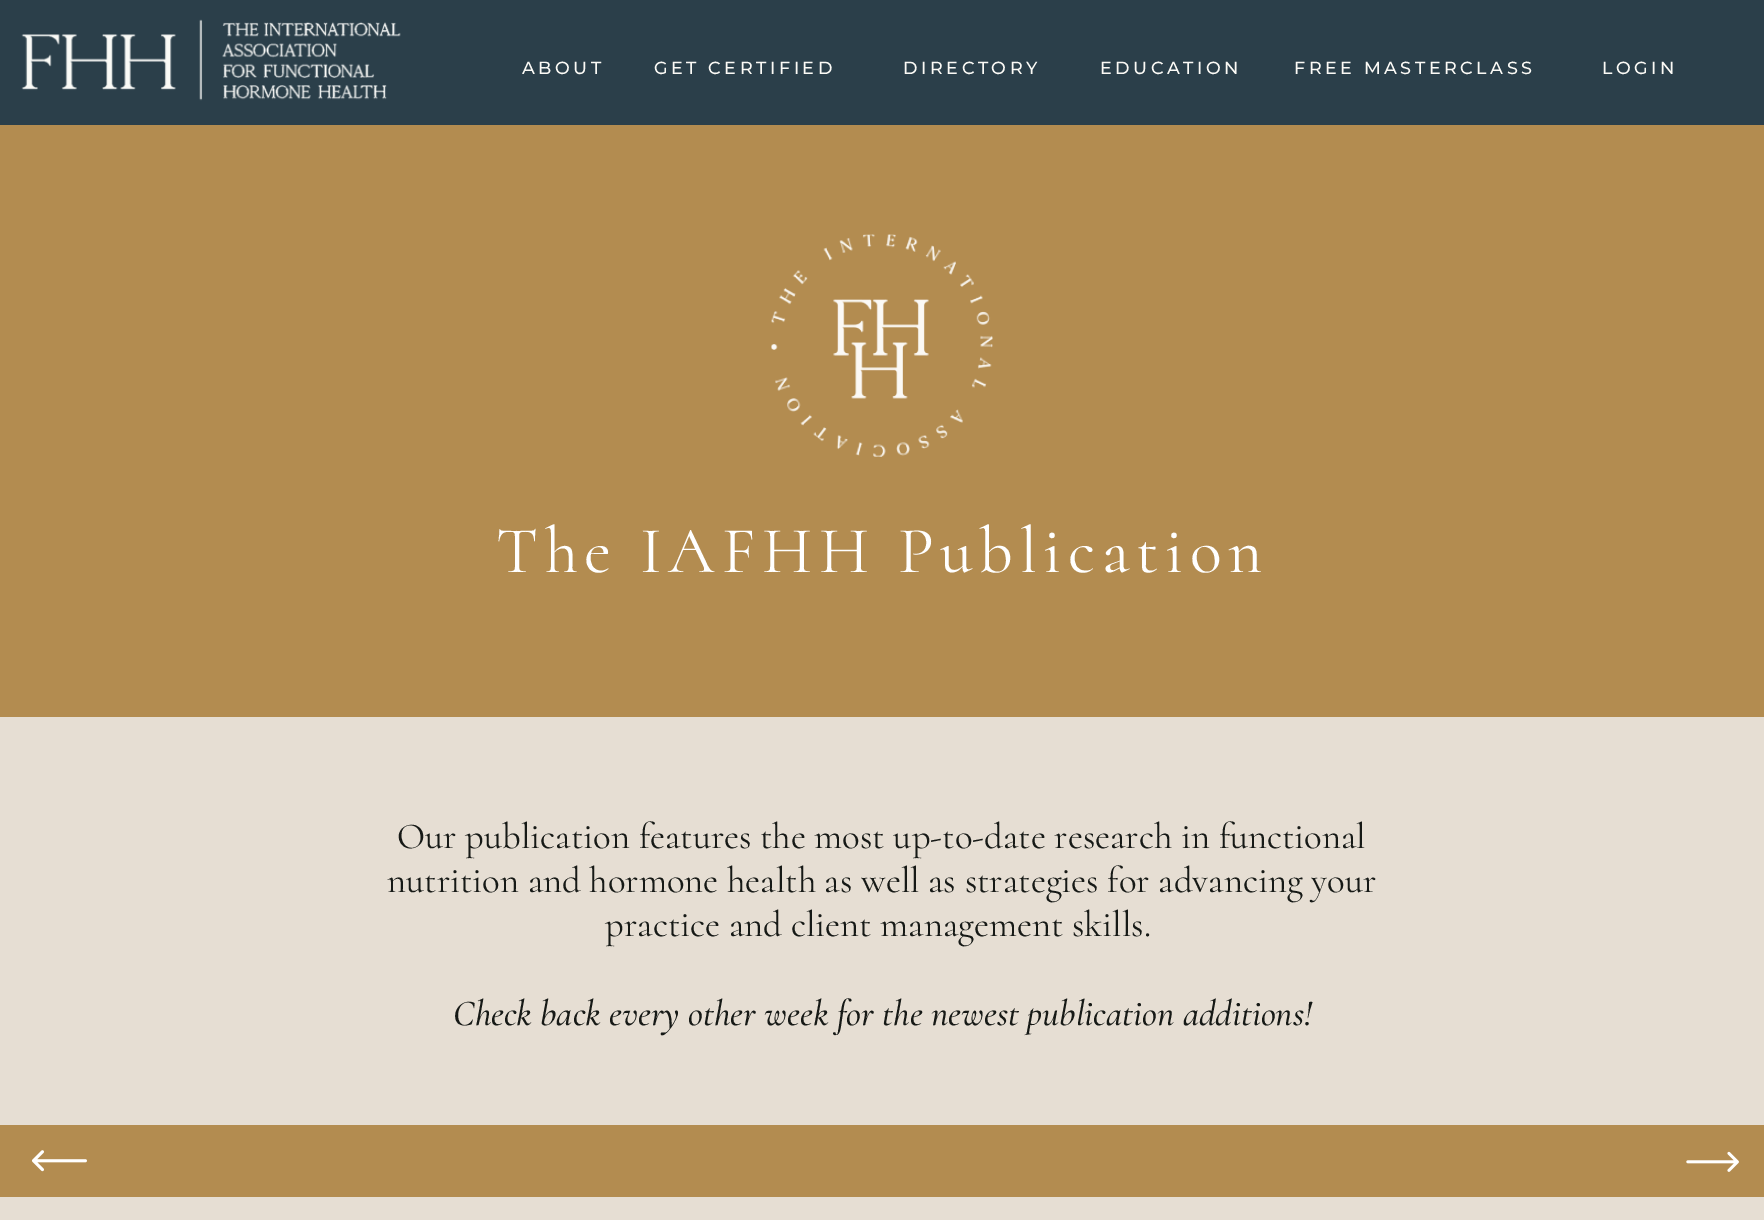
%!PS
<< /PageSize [1764 1220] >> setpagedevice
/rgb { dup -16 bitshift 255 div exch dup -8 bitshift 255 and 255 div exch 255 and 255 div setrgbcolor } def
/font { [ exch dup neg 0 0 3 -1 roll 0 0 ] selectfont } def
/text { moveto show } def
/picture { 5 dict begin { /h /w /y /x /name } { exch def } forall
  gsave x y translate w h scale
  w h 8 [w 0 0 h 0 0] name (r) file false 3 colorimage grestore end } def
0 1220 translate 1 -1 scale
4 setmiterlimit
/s1 { /Cormorant-Regular 36.75 font 16#161916 rgb } def
/s2 { /Cormorant-LightItalic 36.75 font 16#161916 rgb } def
16#E6DED3 rgb
0 0 1764 1220 rectfill
16#2B3F4A rgb
0 0 1764 125 rectfill
/Montserrat-Thin 17.6 font
16#FBFAF6 rgb
522 74 moveto 3.5 0 (ABOUT) ashow
654 74 moveto 3.5 0 (GET CERTIFIED) ashow
903 74 moveto 3.5 0 (DIRECTORY) ashow
1100 74 moveto 3.5 0 (EDUCATION) ashow
1294 74 moveto 3.5 0 (FREE MASTERCLASS) ashow
(pic1.raw) 21 19 380 82 picture
1602 74 moveto 3.5 0 (LOGIN) ashow
16#B38C50 rgb
0 125 1764 592 rectfill
(pic2.raw) 771 234 222 223 picture
(pic3.raw) 771 234 222 223 picture
(pic4.raw) 771 234 222 223 picture
/Cormorant-Regular 66.2 font
16#FFFFFF rgb
496 572 moveto 6.6 0 (The IAFHH Publication) ashow
s1
(Our publication features the most up-to-date research in functional) 397 848 text
(nutrition and hormone health as well as strategies for advancing your) 387 892 text
(practice and client management skills.) 605 936 text
s2
(Check back every other week for the newest publication additions!) 453 1025 text
16#B38C50 rgb
0 1125 1764 72 rectfill
(pic5.raw) 31 1150 56 22 picture
(pic6.raw) 1686 1151 53 21 picture
showpage
